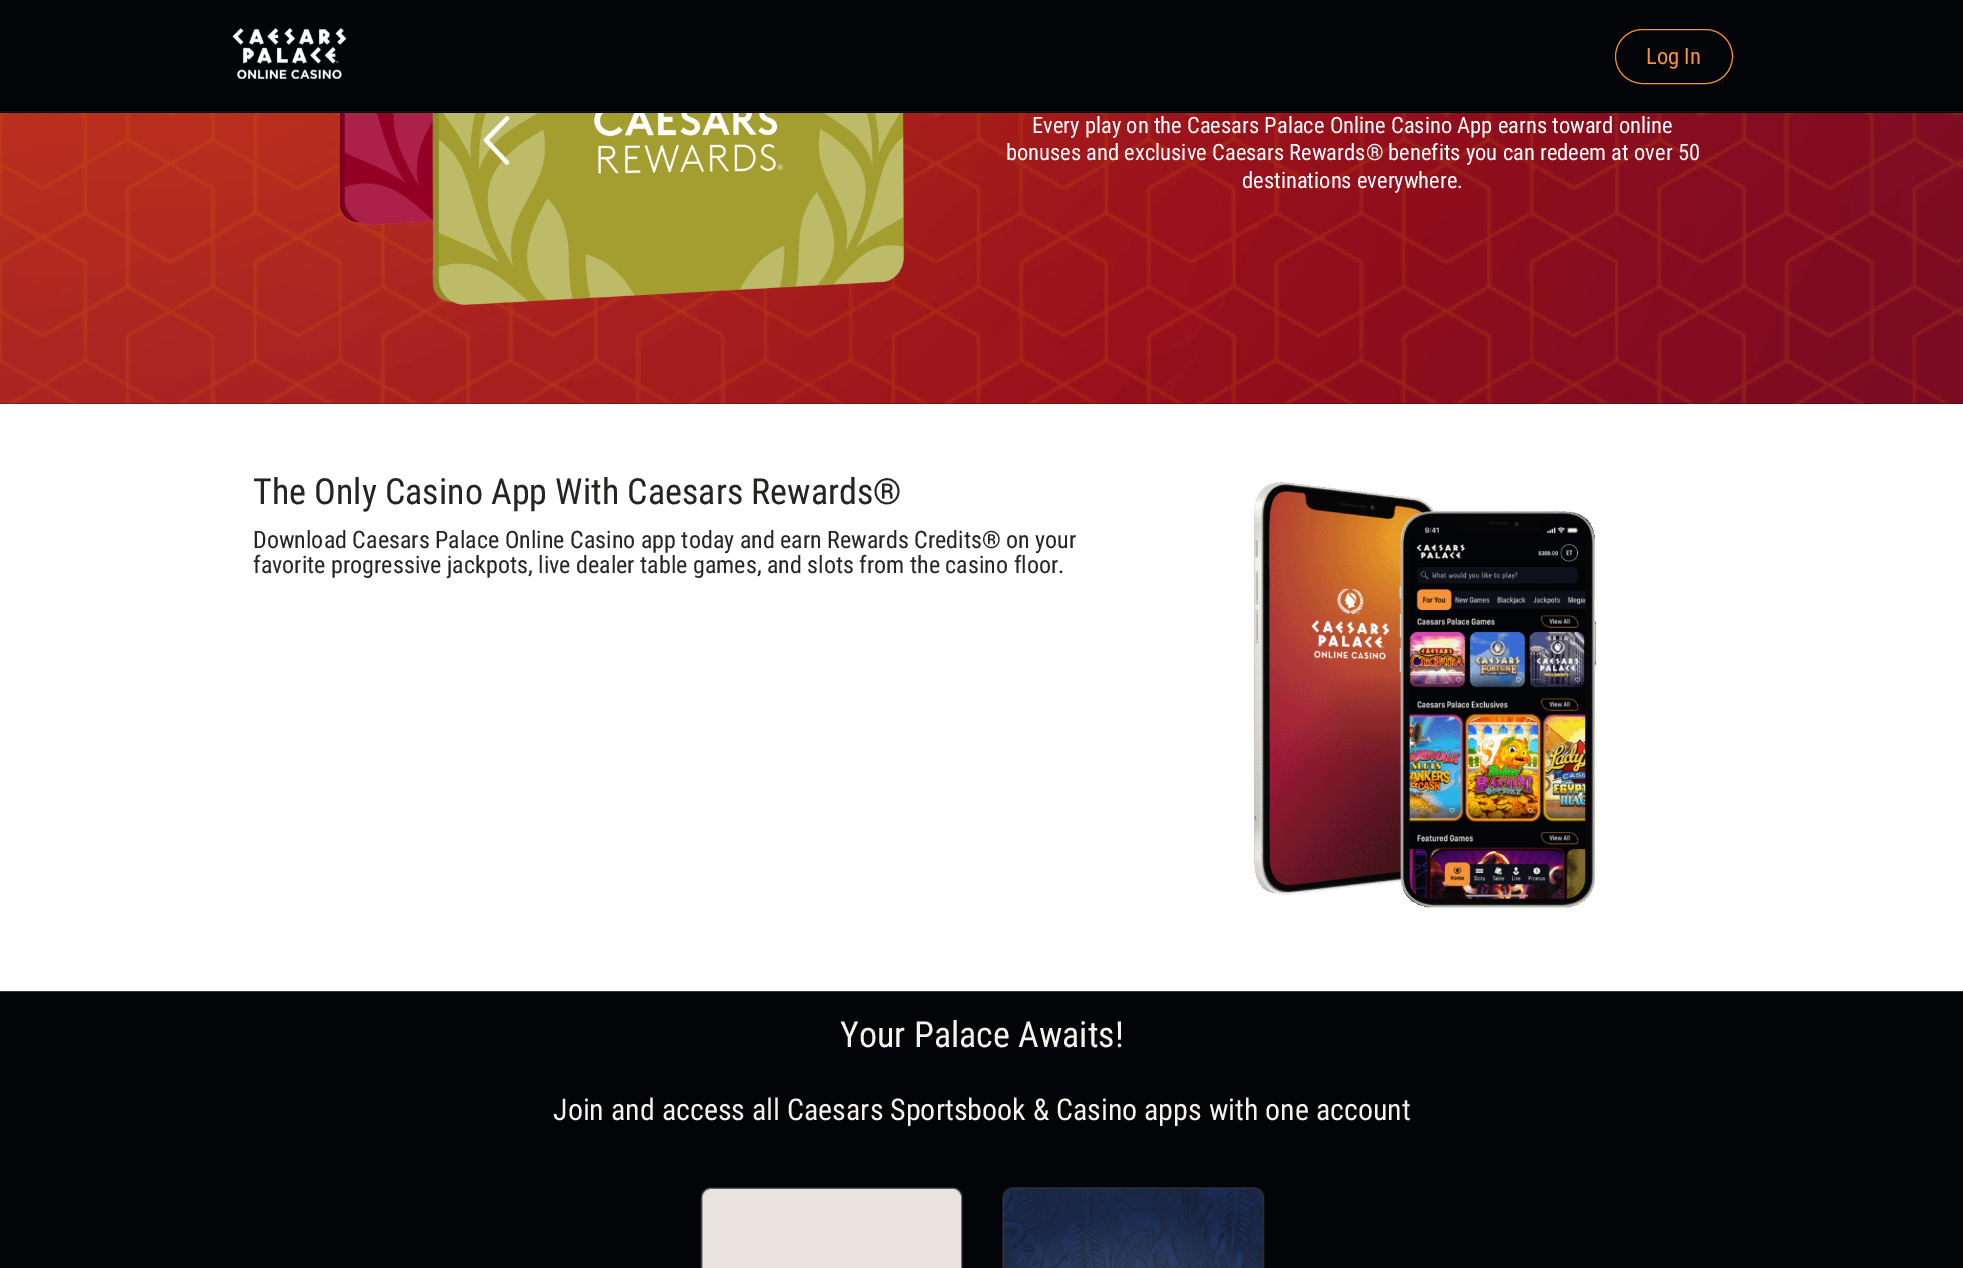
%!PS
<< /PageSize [1963 1268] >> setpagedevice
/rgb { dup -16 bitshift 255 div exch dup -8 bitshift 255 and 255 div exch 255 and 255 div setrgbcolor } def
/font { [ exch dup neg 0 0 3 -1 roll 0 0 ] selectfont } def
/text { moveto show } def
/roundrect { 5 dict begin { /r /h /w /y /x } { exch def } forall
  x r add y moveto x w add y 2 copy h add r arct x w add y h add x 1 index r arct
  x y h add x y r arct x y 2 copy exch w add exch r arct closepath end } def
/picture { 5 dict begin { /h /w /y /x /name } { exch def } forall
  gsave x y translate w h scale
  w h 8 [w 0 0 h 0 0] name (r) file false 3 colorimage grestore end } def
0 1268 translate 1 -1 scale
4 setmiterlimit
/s1 { /RobotoCondensed-Regular 22.5 font 16#F59337 rgb } def
/s2 { /RobotoCondensed-Regular 22.5 font 16#FFFFFF rgb } def
/s3 { /RobotoCondensed-Regular 36 font 16#242423 rgb } def
/s4 { /RobotoCondensed-Regular 24 font 16#242423 rgb } def
/s5 { /RobotoCondensed-Regular 36 font 16#F6F2ED rgb } def
/s6 { /RobotoCondensed-Regular 30 font 16#F6F2ED rgb } def
16#030407 rgb
0 0 1963 1268 rectfill
16#0E101A rgb
0 111 1963 1 rectfill
(pic1.raw) 232 28 115 51 picture
16#F59337 rgb
1615.5 29.5 117 54 27 roundrect stroke
s1
(Log In) 1646 64 text
(pic2.raw) 0 113 1963 291 picture
(pic3.raw) 339 113 565 193 picture
s2
(Every play on the Caesars Palace Online Casino App earns toward online) 1032 133 text
(bonuses and exclusive Caesars Rewards® benefits you can redeem at over 50) 1006 160 text
(destinations everywhere.) 1242 188 text
0 404 1963 587 rectfill
s3
(The Only Casino App With Caesars Rewards®) 253 504 text
s4
(Download Caesars Palace Online Casino app today and earn Rewards Credits® on your) 253 548 text
(favorite progressive jackpots, live dealer table games, and slots from the casino floor.) 253 573 text
(pic4.raw) 1254 482 343 426 picture
16#383736 rgb
0 991 1963 1 rectfill
s5
(Your Palace Awaits!) 840 1047 text
s6
(Join and access all Caesars Sportsbook & Casino apps with one account) 553 1120 text
(pic5.raw) 700 1187 263 81 picture
(pic6.raw) 1002 1187 263 81 picture
showpage
